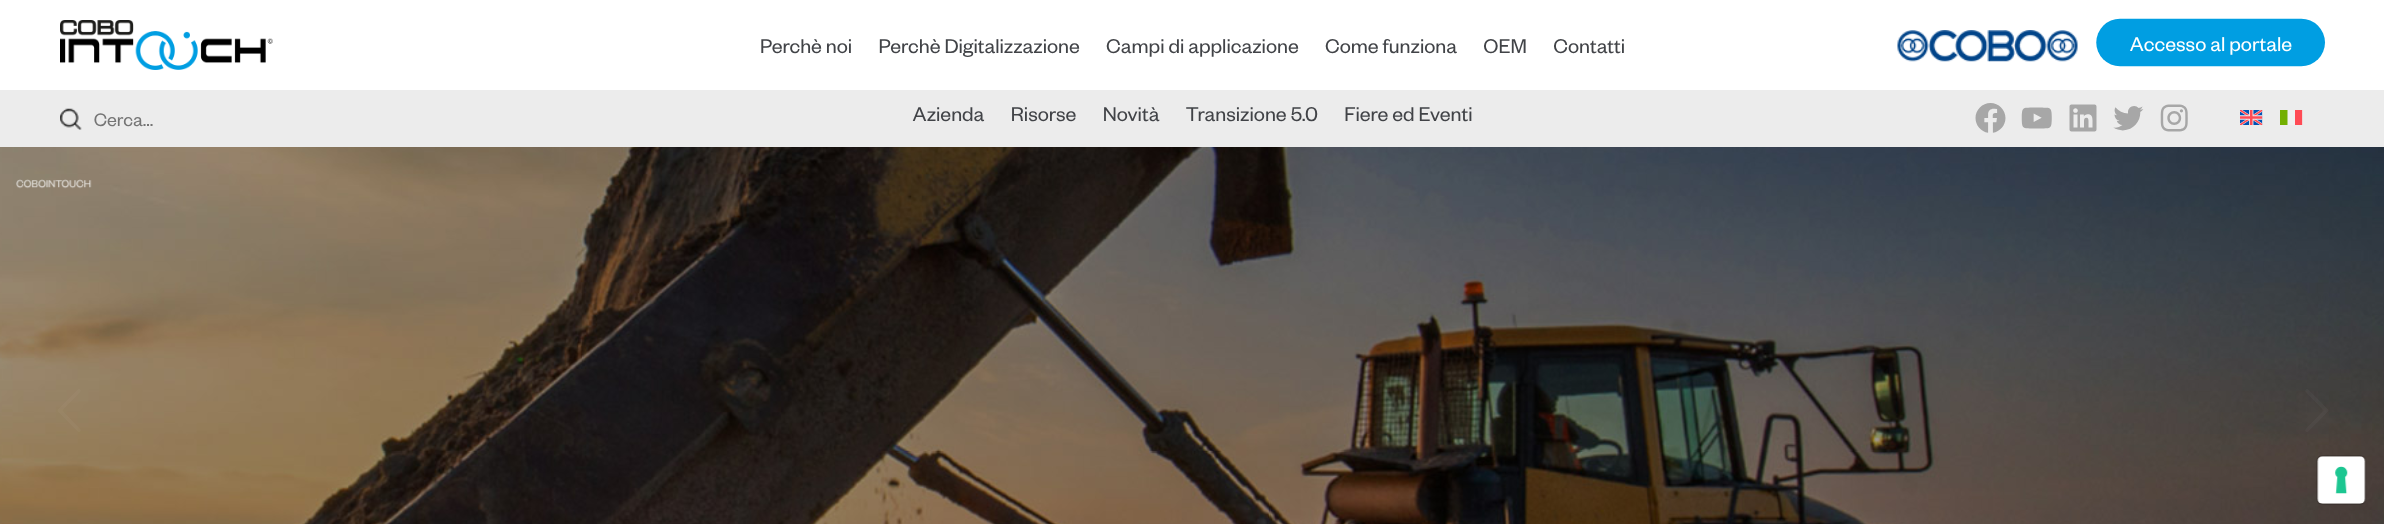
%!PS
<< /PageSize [2384 529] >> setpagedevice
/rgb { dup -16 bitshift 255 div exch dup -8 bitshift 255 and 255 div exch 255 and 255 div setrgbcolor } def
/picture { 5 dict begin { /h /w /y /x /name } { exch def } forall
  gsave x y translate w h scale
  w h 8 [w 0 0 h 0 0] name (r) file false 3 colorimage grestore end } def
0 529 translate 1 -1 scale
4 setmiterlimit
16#FFFFFF rgb
0 0 2384 529 rectfill
(pic1.raw) 0 18 2384 506 picture
showpage
